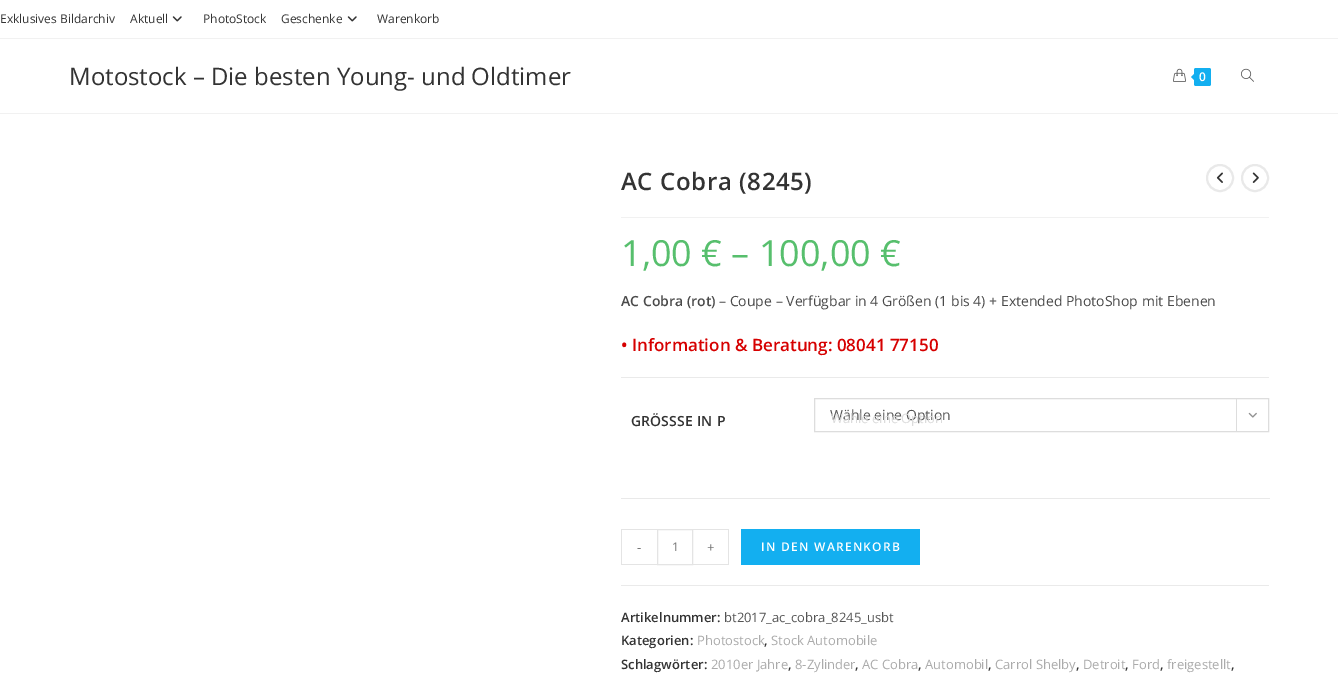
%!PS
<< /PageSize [1338 677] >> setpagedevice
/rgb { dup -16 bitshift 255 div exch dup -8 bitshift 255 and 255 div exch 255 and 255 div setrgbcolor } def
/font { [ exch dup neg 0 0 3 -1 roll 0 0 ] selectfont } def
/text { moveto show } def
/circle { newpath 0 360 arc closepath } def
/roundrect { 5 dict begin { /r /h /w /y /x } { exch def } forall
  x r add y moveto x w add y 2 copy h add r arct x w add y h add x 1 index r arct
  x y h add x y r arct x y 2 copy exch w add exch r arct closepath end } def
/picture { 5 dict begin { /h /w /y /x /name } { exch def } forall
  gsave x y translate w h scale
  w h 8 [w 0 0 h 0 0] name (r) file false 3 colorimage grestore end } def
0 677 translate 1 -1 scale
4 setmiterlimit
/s1 { /OpenSans-Regular 12 font 16#333333 rgb } def
/s2 { /OpenSans-Regular 24 font 16#333333 rgb } def
/s3 { /OpenSans-SemiBold 12 font 16#FFFFFF rgb } def
/s4 { /OpenSans-Regular 36 font 16#57BF6D rgb } def
/s5 { /OpenSans-SemiBold 14 font 16#4A4A4A rgb } def
/s6 { /OpenSans-Regular 14 font 16#4A4A4A rgb } def
/s7 { /OpenSans-SemiBold 17 font 16#D60000 rgb } def
/s8 { /OpenSans-SemiBold 14 font 16#333333 rgb } def
/s9 { /OpenSans-Regular 14 font 16#555555 rgb } def
/s10 { /OpenSans-Regular 13 font 16#DCDCDC rgb } def
/s11 { /OpenSans-Regular 13 font 16#777777 rgb } def
/s12 { /OpenSans-Regular 12 font 16#777777 rgb } def
/s13 { /OpenSans-SemiBold 13 font 16#333333 rgb } def
/s14 { /OpenSans-Regular 13 font 16#555555 rgb } def
/s15 { /OpenSans-Regular 13 font 16#ABABAB rgb } def
16#FFFFFF rgb
0 0 1338 677 rectfill
16#F1F1F1 rgb
0 38 1338 1 rectfill
s1
(Exklusives Bildarchiv) 0 23 text
(Aktuell) 130 23 text
(pic1.raw) 172 16 10 6 picture
(PhotoStock) 203 23 text
(Geschenke) 281 23 text
(pic1.raw) 347 16 10 6 picture
(Warenkorb) 377 23 text
16#F1F1F1 rgb
0 113 1338 1 rectfill
s2
(Motostock – Die besten Young- und Oldtimer) 69 85 text
(pic2.raw) 1173 68 13 14 picture
16#13AFF0 rgb
1194 68 17 18 2 roundrect fill
1196 72 moveto 1196 82 lineto 1191 77 lineto closepath fill
s3
(0) 1199 81 text
(pic3.raw) 1241 68 13 14 picture
16#F1F1F1 rgb
621 217 648 1 rectfill
/OpenSans-SemiBold 24 font
16#333333 rgb
621 190 moveto 0.6 0 (AC Cobra \(8245\)) ashow
s4
(1,00 € – 100,00 €) 621 266 text
s5
(AC Cobra \(rot\)) 621 306 text
s6
(– Coupe – Verfügbar in 4 Größen \(1 bis 4\) + Extended PhotoShop mit Ebenen) 719 306 text
s7
(• Information & Beratung: 08041 77150) 621 351 text
16#EAEAEA rgb
621 377 648 1 rectfill
621 585 648 1 rectfill
s8
(GRÖSS) 631 426 text
677 426 moveto 1 0 32 (SE IN P) widthshow
16#E9E9E9 rgb
621 498 649 1 rectfill
16#DDDDDD rgb
814.5 398.5 454 33 rectstroke
s9
(Wähle eine Option) 830 420 text
16#DDDDDD rgb
1236 399 1 32 rectfill
(pic4.raw) 1248 412 9 6 picture
s10
(Wähle eine Option) 831 423 text
16#E4E4E4 rgb
621 529 36 1 rectfill
621 564 36 1 rectfill
621 529 1 36 rectfill
s11
(-) 637 552 text
16#E4E4E4 rgb
657.5 529.5 35 35 rectstroke
s12
(1) 672 551 text
16#E4E4E4 rgb
693 529 36 1 rectfill
728 529 1 36 rectfill
693 564 36 1 rectfill
s11
(+) 707 552 text
16#13AFF0 rgb
741 529 179 36 rectfill
/OpenSans-SemiBold 12 font
16#FFFFFF rgb
761 551 moveto 1.25 0 (IN DEN WARENKORB) ashow
s13
(Artikelnummer:) 621 622 text
s14
(bt2017_ac_cobra_8245_usbt) 724 622 text
s13
(Kategorien:) 621 645 text
s15
(Photostock) 697 645 text
s13
(,) 764 645 text
s15
(Stock Automobile) 771 645 text
s13
(Schlagwörter:) 621 669 text
s15
(2010er Jahre) 711 669 text
s13
(,) 788 669 text
s15
(8-Zylinder) 795 669 text
s13
(,) 855 669 text
s15
(AC Cobra) 862 669 text
s13
(,) 918 669 text
s15
(Automobil) 925 669 text
s13
(,) 988 669 text
s15
(Carrol Shelby) 995 669 text
s13
(,) 1076 669 text
s15
(Detroit) 1083 669 text
s13
(,) 1125 669 text
s15
(Ford) 1132 669 text
s13
(,) 1160 669 text
s15
(freigestellt) 1167 669 text
s13
(,) 1231 669 text
16#E9E9E9 rgb
2 setlinewidth
1220 178 13 circle stroke
(pic5.raw) 1216 172 7 11 picture
1255 178 13 circle stroke
(pic6.raw) 1252 172 7 11 picture
showpage
